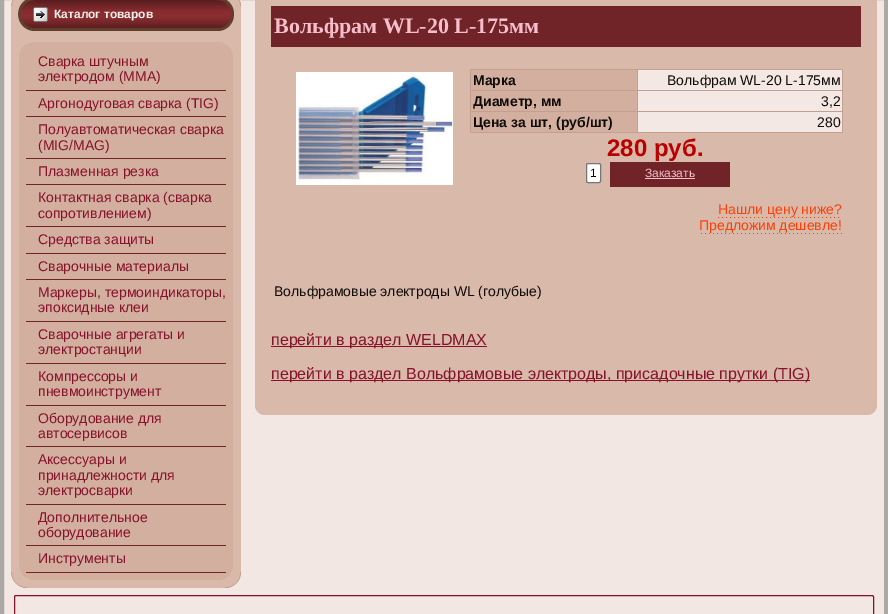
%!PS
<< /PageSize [888 614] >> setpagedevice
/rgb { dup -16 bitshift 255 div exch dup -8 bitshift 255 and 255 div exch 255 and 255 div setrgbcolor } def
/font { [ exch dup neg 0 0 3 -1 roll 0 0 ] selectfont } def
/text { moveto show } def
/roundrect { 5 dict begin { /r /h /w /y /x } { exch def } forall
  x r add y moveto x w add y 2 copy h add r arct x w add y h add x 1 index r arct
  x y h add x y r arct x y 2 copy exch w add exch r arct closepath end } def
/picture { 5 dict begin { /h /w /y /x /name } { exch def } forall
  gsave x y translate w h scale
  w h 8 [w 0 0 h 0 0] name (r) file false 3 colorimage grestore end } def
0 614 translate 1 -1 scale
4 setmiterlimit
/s1 { /LiberationSans-Bold 12 font 16#F7F1EE rgb } def
/s2 { /LiberationSans-Regular 14 font 16#88112B rgb } def
/s3 { /LiberationSerif-Bold 22 font 16#F7BFCC rgb } def
/s4 { /LiberationSans-Bold 14 font 16#110B08 rgb } def
/s5 { /LiberationSans-Regular 14 font 16#110B08 rgb } def
/s6 { /LiberationSans-Bold 24 font 16#BB0000 rgb } def
/s7 { /LiberationSans-Regular 12 font 16#000000 rgb } def
/s8 { /LiberationSans-Regular 12 font 16#F7BFCC rgb } def
/s9 { /LiberationSans-Regular 14 font 16#FC4108 rgb } def
/s10 { /LiberationSans-Regular 16 font 16#88112B rgb } def
16#FFFFFF rgb
0 0 888 614 rectfill
16#F2E7E2 rgb
4 -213 moveto 884 -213 lineto 884 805 lineto 884 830 859 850 828 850 curveto 60 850 lineto 29 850 4 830 4 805 curveto closepath fill
16#ACA8A6 rgb
4 setlinewidth
2 -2 884 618 rectstroke
(pic1.raw) 11 0 15 6 picture
(pic2.raw) 227 0 14 6 picture
16#D8B9AA rgb
11 6 16 566 rectfill
27 26 198 18 rectfill
(pic3.raw) 18 0 199 31 picture
225 6 16 566 rectfill
(pic4.raw) 217 0 17 31 picture
(pic5.raw) 33 7 15 15 picture
s1
(Каталог товаров) 54 18 text
(pic6.raw) 19 42 15 15 picture
16#D2AF9E rgb
34 42 184 15 rectfill
(pic7.raw) 218 42 15 15 picture
19 57 15 508 rectfill
34 57 199 508 rectfill
16#702427 rgb
26 90 200 1 rectfill
s2
(Сварка штучным) 38 66 text
(электродом \(ММА\)) 38 81 text
16#702427 rgb
26 116 200 1 rectfill
s2
(Аргонодуговая сварка \(TIG\)) 38 108 text
16#702427 rgb
26 158 200 1 rectfill
s2
(Полуавтоматическая сварка) 38 134 text
(\(MIG/MAG\)) 38 150 text
16#702427 rgb
26 184 200 1 rectfill
s2
(Плазменная резка) 38 176 text
16#702427 rgb
26 226 200 1 rectfill
s2
(Контактная сварка \(сварка) 38 202 text
(сопротивлением\)) 38 218 text
16#702427 rgb
26 253 200 1 rectfill
s2
(Средства защиты) 38 244 text
16#702427 rgb
26 279 200 1 rectfill
s2
(Сварочные материалы) 38 271 text
16#702427 rgb
26 321 200 1 rectfill
s2
(Маркеры, термоиндикаторы,) 38 297 text
(эпоксидные клеи) 38 312 text
16#702427 rgb
26 363 200 1 rectfill
s2
(Сварочные агрегаты и) 38 339 text
(электростанции) 38 354 text
16#702427 rgb
26 405 200 1 rectfill
s2
(Компрессоры и) 38 381 text
(пневмоинструмент) 38 396 text
16#702427 rgb
26 446 200 1 rectfill
s2
(Оборудование для) 38 423 text
(автосервисов) 38 438 text
16#702427 rgb
26 504 200 1 rectfill
s2
(Аксессуары и) 38 464 text
(принадлежности для) 38 480 text
(электросварки) 38 495 text
16#702427 rgb
26 545 200 1 rectfill
s2
(Дополнительное) 38 522 text
(оборудование) 38 537 text
(pic10.raw) 11 572 16 16 picture
16#D8B9AA rgb
27 579 198 9 rectfill
(pic8.raw) 19 565 15 15 picture
16#D2AF9E rgb
34 565 184 15 rectfill
(pic11.raw) 225 572 16 16 picture
(pic9.raw) 218 565 15 15 picture
16#702427 rgb
26 572 200 1 rectfill
s2
(Инструменты) 38 563 text
16#D8B9AA rgb
255 -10 622 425 10 roundrect fill
16#702427 rgb
271 6 590 41 rectfill
s3
(Вольфрам WL-20 L-175мм) 274 33 text
(pic12.raw) 296 72 157 113 picture
16#C29F8E rgb
470 132 373 1 rectfill
470 69 1 64 rectfill
16#D2AF9E rgb
471 70 166 20 rectfill
16#C29F8E rgb
470 69 373 1 rectfill
470 90 373 1 rectfill
470 111 373 1 rectfill
637 111 1 22 rectfill
637 90 1 22 rectfill
637 69 1 22 rectfill
s4
(Марка) 473 85 text
16#F3E8E3 rgb
638 70 204 20 rectfill
16#C29F8E rgb
842 111 1 22 rectfill
842 90 1 22 rectfill
842 69 1 22 rectfill
s5
(Вольфрам WL-20 L-175мм) 667 85 text
16#D2AF9E rgb
471 91 166 20 rectfill
s4
(Диаметр, мм) 473 106 text
16#F3E8E3 rgb
638 91 204 20 rectfill
s5
(3,2) 821 106 text
16#D2AF9E rgb
471 112 166 20 rectfill
s4
(Цена за шт, \(руб/шт\)) 473 127 text
16#F3E8E3 rgb
638 112 204 20 rectfill
s5
(280) 817 127 text
s6
(280 руб.) 607 156 text
16#FFFFFF rgb
586.5 163.5 14 19 1.5 roundrect gsave fill grestore
16#767676 rgb
1 setlinewidth
stroke
s7
(1) 590 177 text
16#702427 rgb
610 162 120 25 rectfill
s8
(Заказать) 645 177 text
645 178 50 1 rectfill
s9
(Нашли цену ниже?) 718 214 text
(pic13.raw) 718 217 121 1 picture
(Предложим дешевле!) 699 230 text
(pic14.raw) 701 233 141 1 picture
s5
(Вольфрамовые электроды WL \(голубые\)) 274 296 text
16#88112B rgb
271 346 216 1 rectfill
s10
(перейти в раздел WELDMAX) 271 345 text
271 380 539 1 rectfill
(перейти в раздел Вольфрамовые электроды, присадочные прутки \(TIG\)) 271 379 text
14.5 595.5 859 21 1.5 roundrect stroke
showpage
